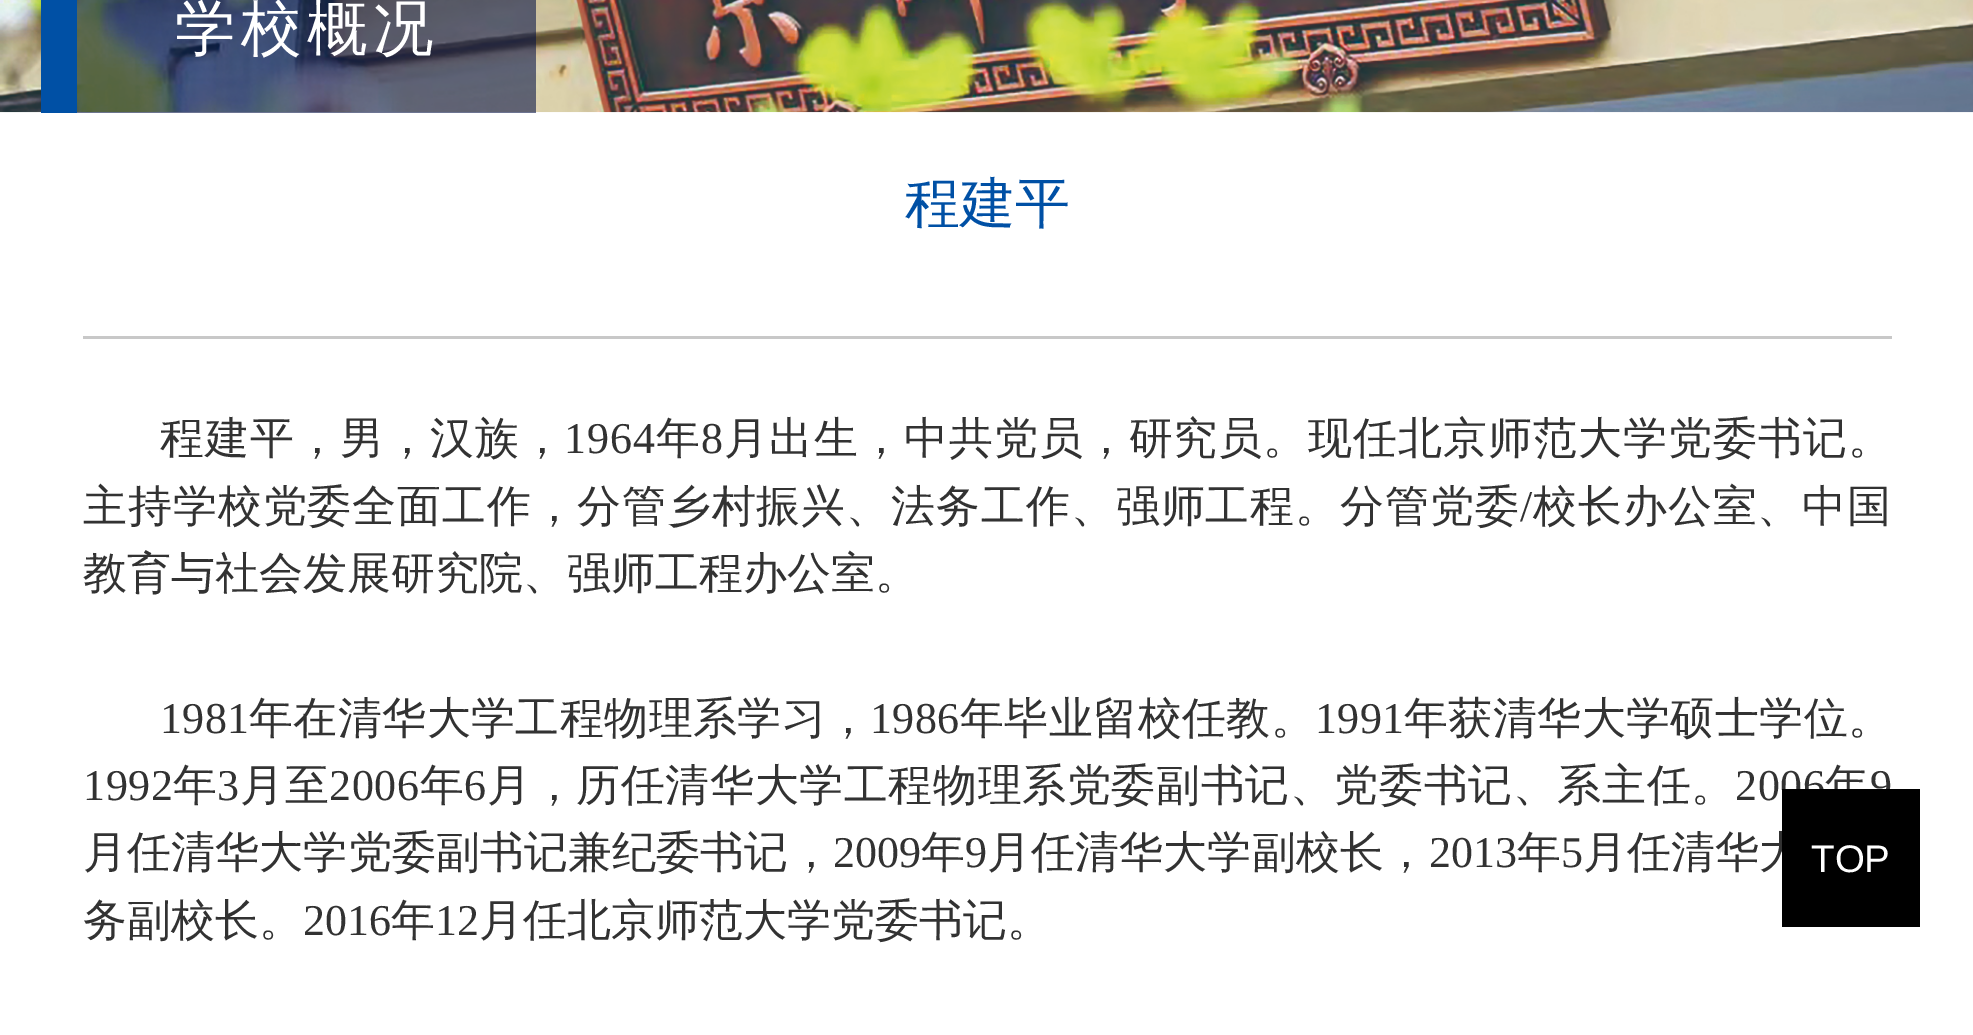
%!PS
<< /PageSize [1973 1035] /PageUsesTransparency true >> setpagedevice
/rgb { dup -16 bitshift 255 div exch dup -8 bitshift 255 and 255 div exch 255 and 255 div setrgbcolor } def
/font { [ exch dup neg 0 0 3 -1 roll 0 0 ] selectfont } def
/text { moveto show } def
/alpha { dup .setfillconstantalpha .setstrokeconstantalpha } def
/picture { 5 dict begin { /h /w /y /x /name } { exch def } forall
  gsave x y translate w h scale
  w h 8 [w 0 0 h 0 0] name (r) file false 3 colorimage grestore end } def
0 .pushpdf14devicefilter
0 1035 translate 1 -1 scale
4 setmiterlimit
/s1 { /WenQuanYiZenHei-Medium 55 font 16#0050A5 rgb } def
/s2 { /WenQuanYiZenHei-Medium 44 font 16#323232 rgb } def
/s3 { /LiberationSerif-Regular 44 font 16#323232 rgb } def
/s4 { /LiberationSans-Regular 38.5 font 16#FFFFFF rgb } def
16#FFFFFF rgb
0 0 1973 1035 rectfill
(pic1.raw) 0 0 1973 113 picture
0.57 alpha
16#000D43 rgb
77 0 459 113 rectfill
1 alpha
16#0050A5 rgb
41 0 36 113 rectfill
/WenQuanYiZenHei-Medium 60.5 font
16#FFFFFF rgb
175 49 moveto 5.5 0 (学校概况) ashow
s1
(程建平) 905 222 text
16#C8C8C8 rgb
83 336 1809 3 rectfill
/WenQuanYiZenHei-Medium 44 font
16#323232 rgb
160 453 moveto 0.95 0 (程建平，男，汉族，) ashow
/LiberationSerif-Regular 44 font
564 453 moveto 0.95 0 (1964) ashow
/WenQuanYiZenHei-Medium 44 font
656 453 moveto 0.95 0 (年) ashow
/LiberationSerif-Regular 44 font
701 453 moveto 0.95 0 (8) ashow
/WenQuanYiZenHei-Medium 44 font
724 453 moveto 0.95 0 (月出生，中共党员，研究员。现任北京师范大学党委书记。) ashow
83 521 moveto 0.9 0 (主持学校党委全面工作，分管乡村振兴、法务工作、强师工程。分管党委) ashow
/LiberationSerif-Regular 44 font
1520 521 moveto 0.9 0 (/) ashow
/WenQuanYiZenHei-Medium 44 font
1533 521 moveto 0.9 0 (校长办公室、中国) ashow
(教育与社会发展研究院、强师工程办公室。) 83 588 text
/LiberationSerif-Regular 44 font
160 733 moveto 0.4 0 (1981) ashow
/WenQuanYiZenHei-Medium 44 font
249 733 moveto 0.4 0 (年在清华大学工程物理系学习，) ashow
/LiberationSerif-Regular 44 font
870 733 moveto 0.4 0 (1986) ashow
/WenQuanYiZenHei-Medium 44 font
960 733 moveto 0.4 0 (年毕业留校任教。) ashow
/LiberationSerif-Regular 44 font
1315 733 moveto 0.4 0 (1991) ashow
/WenQuanYiZenHei-Medium 44 font
1404 733 moveto 0.4 0 (年获清华大学硕士学位。) ashow
/LiberationSerif-Regular 44 font
83 800 moveto 0.6 0 (1992) ashow
/WenQuanYiZenHei-Medium 44 font
173 800 moveto 0.6 0 (年) ashow
/LiberationSerif-Regular 44 font
217 800 moveto 0.6 0 (3) ashow
/WenQuanYiZenHei-Medium 44 font
240 800 moveto 0.6 0 (月至) ashow
/LiberationSerif-Regular 44 font
329 800 moveto 0.6 0 (2006) ashow
/WenQuanYiZenHei-Medium 44 font
420 800 moveto 0.6 0 (年) ashow
/LiberationSerif-Regular 44 font
464 800 moveto 0.6 0 (6) ashow
/WenQuanYiZenHei-Medium 44 font
487 800 moveto 0.6 0 (月，历任清华大学工程物理系党委副书记、党委书记、系主任。) ashow
/LiberationSerif-Regular 44 font
1735 800 moveto 0.6 0 (2006) ashow
/WenQuanYiZenHei-Medium 44 font
1825 800 moveto 0.6 0 (年) ashow
/LiberationSerif-Regular 44 font
1870 800 moveto 0.6 0 (9) ashow
/WenQuanYiZenHei-Medium 44 font
83 867 moveto 0.1 0 (月任清华大学党委副书记兼纪委书记，) ashow
/LiberationSerif-Regular 44 font
833 867 moveto 0.1 0 (2009) ashow
/WenQuanYiZenHei-Medium 44 font
921 867 moveto 0.1 0 (年) ashow
/LiberationSerif-Regular 44 font
965 867 moveto 0.1 0 (9) ashow
/WenQuanYiZenHei-Medium 44 font
987 867 moveto 0.1 0 (月任清华大学副校长，) ashow
/LiberationSerif-Regular 44 font
1429 867 moveto 0.1 0 (2013) ashow
/WenQuanYiZenHei-Medium 44 font
1517 867 moveto 0.1 0 (年) ashow
/LiberationSerif-Regular 44 font
1561 867 moveto 0.1 0 (5) ashow
/WenQuanYiZenHei-Medium 44 font
1583 867 moveto 0.1 0 (月任清华大) ashow
(务副校长。) 83 935 text
s3
(2016) 303 935 text
s2
(年) 391 935 text
s3
(12) 435 935 text
s2
(月任北京师范大学党委书记。) 479 935 text
16#000000 rgb
1782 789 138 138 rectfill
s4
(TOP) 1811 872 text
.poppdf14devicefilter showpage
